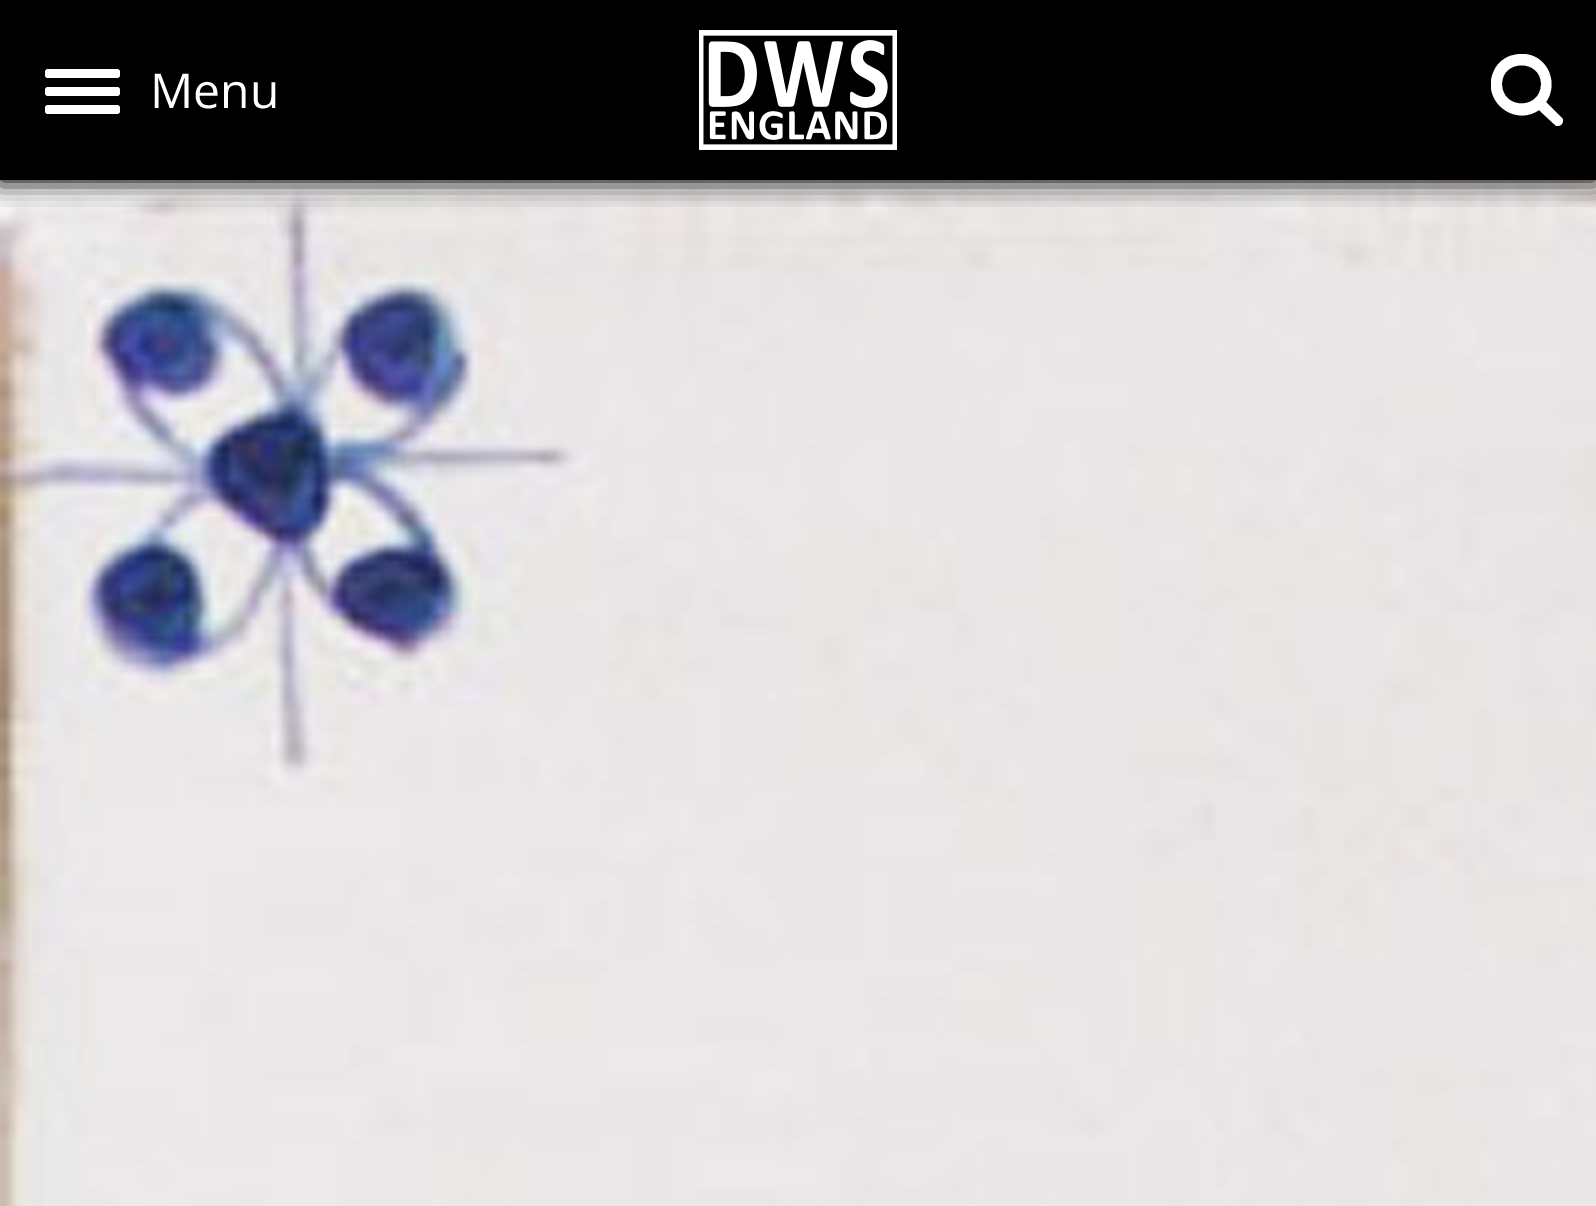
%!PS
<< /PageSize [1596 1206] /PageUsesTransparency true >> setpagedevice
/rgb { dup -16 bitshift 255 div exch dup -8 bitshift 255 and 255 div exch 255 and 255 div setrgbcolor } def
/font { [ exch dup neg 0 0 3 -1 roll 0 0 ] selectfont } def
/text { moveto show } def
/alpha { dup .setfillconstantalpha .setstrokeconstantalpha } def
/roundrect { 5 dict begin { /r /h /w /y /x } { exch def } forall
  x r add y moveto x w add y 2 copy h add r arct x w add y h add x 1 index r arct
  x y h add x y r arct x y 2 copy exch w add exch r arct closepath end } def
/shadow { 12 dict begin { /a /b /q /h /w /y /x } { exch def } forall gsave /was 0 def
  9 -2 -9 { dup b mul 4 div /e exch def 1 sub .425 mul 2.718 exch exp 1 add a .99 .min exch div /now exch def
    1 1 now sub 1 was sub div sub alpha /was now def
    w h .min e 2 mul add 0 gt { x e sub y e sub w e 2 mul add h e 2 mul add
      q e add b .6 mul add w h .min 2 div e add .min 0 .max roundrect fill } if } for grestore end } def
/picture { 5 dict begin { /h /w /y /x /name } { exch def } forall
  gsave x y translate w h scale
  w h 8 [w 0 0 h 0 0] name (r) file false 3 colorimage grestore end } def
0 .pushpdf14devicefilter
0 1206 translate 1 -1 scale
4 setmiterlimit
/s1 { /OpenSans-Regular 48 font 16#FFFFFF rgb } def
16#FFFFFF rgb
0 0 1596 1206 rectfill
(pic2.raw) 0 180 1596 1026 picture
16#000000 rgb
0 0 1596 180 0 12 0.7 shadow
0 15 1596 165 0 12 0.7 shadow
0 0 1596 180 rectfill
16#FFFFFF rgb
45 69 75 9 3 roundrect fill
45 87 75 9 3 roundrect fill
s1
(Menu) 150 108 text
45 105 75 9 3 roundrect fill
(pic1.raw) 699 30 198 120 picture
gsave
1491 54 72 72 rectclip
1541 84 moveto 1541 59 1502 59 1502 84 curveto 1502 110 1541 110 1541 84 curveto closepath 1563 120 moveto 1563 124 1561 126 1557 126 curveto 1556 126 1555 125 1554 124 curveto 1539 110 lineto 1514 127 1482 101 1493 73 curveto 1496 65 1502 59 1510 56 curveto 1519 53 1529 53 1537 58 curveto 1552 67 1556 88 1546 102 curveto 1561 117 lineto 1562 118 1563 119 1563 120 curveto closepath fill
grestore
.poppdf14devicefilter showpage
